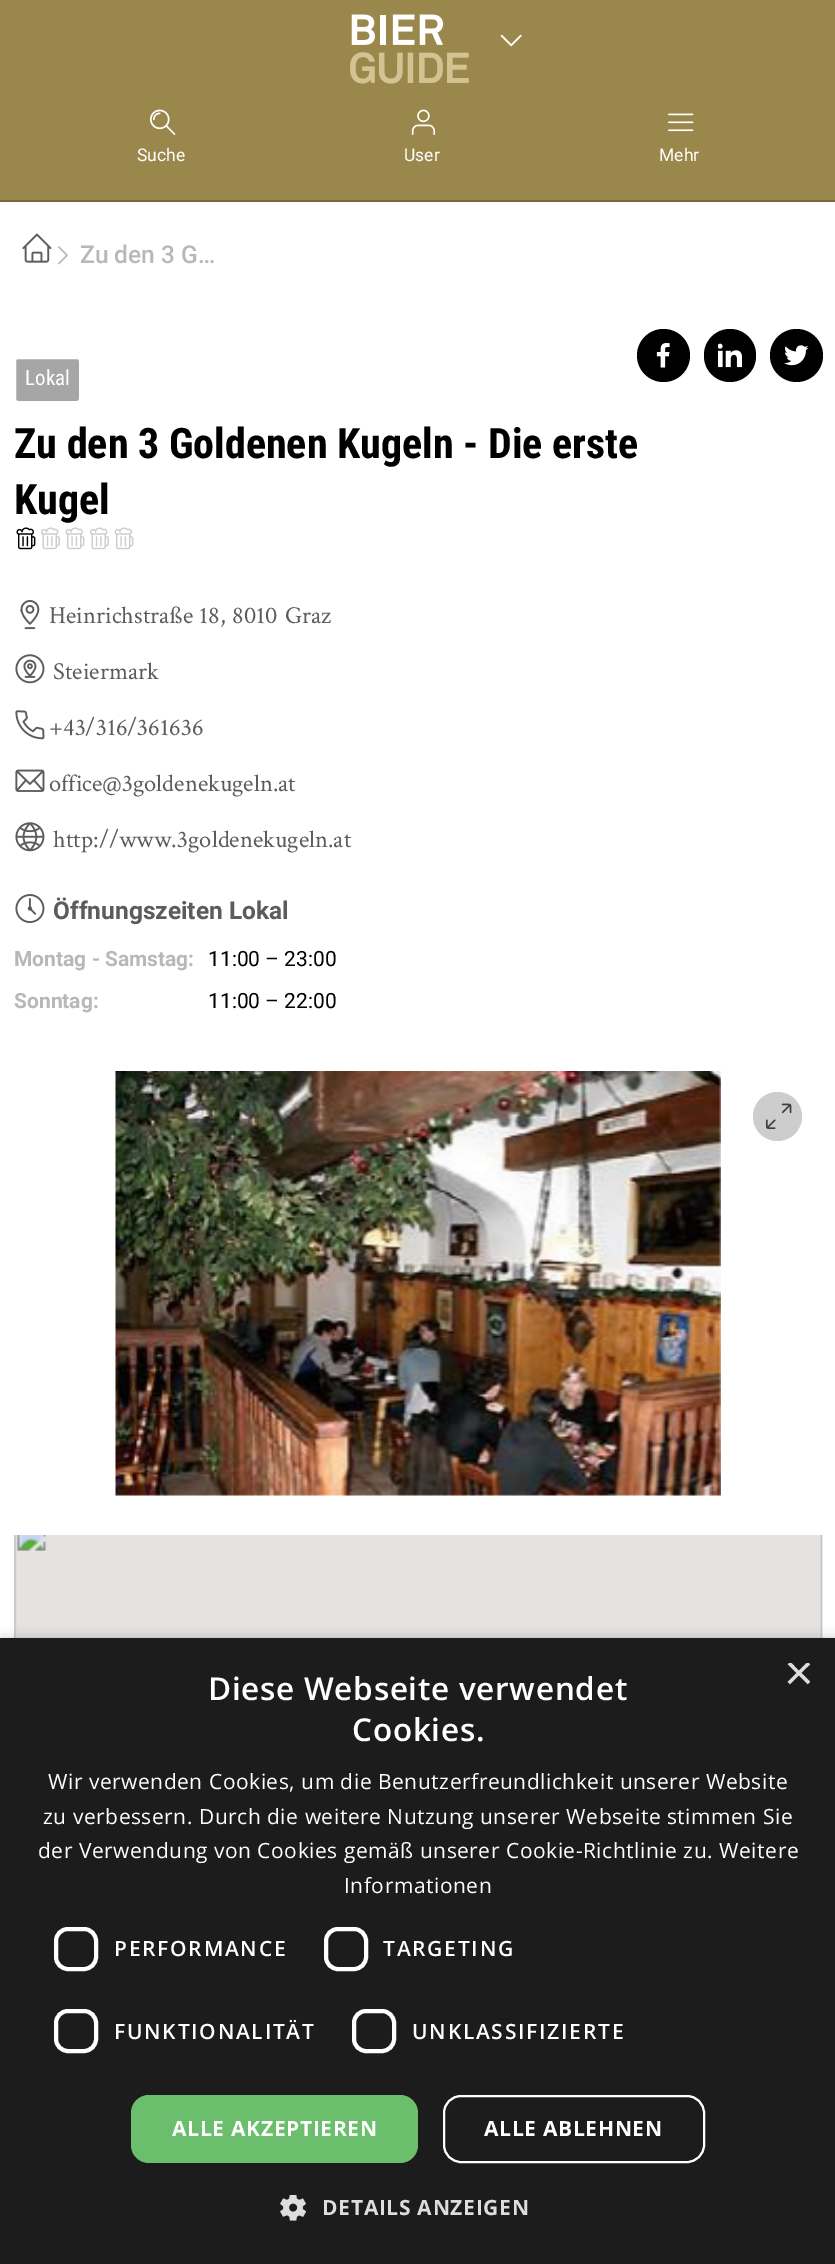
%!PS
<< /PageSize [835 2264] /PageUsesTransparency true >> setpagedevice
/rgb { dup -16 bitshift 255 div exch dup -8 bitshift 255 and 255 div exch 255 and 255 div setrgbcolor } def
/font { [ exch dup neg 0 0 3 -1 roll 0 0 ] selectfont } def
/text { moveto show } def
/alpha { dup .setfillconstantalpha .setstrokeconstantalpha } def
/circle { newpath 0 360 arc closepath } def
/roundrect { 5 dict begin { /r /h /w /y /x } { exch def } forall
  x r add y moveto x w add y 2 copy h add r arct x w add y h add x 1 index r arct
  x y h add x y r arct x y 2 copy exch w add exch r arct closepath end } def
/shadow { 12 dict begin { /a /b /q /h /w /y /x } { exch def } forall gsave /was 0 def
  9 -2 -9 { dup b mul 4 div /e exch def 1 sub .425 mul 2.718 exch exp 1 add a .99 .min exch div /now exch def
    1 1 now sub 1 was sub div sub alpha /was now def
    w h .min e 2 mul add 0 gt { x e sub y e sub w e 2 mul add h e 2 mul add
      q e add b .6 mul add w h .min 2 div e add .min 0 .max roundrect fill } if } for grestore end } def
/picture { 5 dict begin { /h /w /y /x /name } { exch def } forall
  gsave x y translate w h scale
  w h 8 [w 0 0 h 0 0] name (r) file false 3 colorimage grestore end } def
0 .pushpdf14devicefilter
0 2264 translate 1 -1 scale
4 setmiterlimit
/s1 { /Roboto-Regular 17.5 font 16#FFFFFF rgb } def
/s2 { /Roboto-Medium 24.5 font 16#B8B8B8 rgb } def
/s3 { /RobotoCondensed-Regular 21 font 16#FFFFFF rgb } def
/s4 { /RobotoCondensed-Bold 42 font 16#000000 rgb } def
/s5 { /CrimsonText-Regular 24.5 font 16#5C5C5C rgb } def
/s6 { /Roboto-Bold 24.5 font 16#5C5C5C rgb } def
/s7 { /Roboto-Bold 21 font 16#B8B8B8 rgb } def
/s8 { /Roboto-Regular 21 font 16#000000 rgb } def
/s9 { /LiberationSans-Regular 51 font 16#DDDDDD rgb } def
16#FFFFFF rgb
0 0 835 2264 rectfill
16#9A874C rgb
0 0 835 200 rectfill
16#78693B rgb
0 200 835 2 rectfill
(pic1.raw) 350 14 119 70 picture
(pic2.raw) 500 34 22 13 picture
(pic3.raw) 150 109 26 26 picture
s1
(Suche) 137 161 text
(pic4.raw) 411 109 25 26 picture
(User) 404 161 text
(pic5.raw) 668 113 26 19 picture
(Mehr) 659 161 text
(pic6.raw) 22 233 30 30 picture
(pic7.raw) 58 246 10 19 picture
s2
(Zu den 3 G…) 80 263 text
16#000000 rgb
663.5 355.5 26.5 circle fill
(pic8.raw) 656 343 14 25 picture
704 329 52 53 26 roundrect fill
(pic9.raw) 718 343 24 25 picture
796.5 355.5 26.5 circle fill
(pic10.raw) 784 345 25 21 picture
16#A6A6A6 rgb
15 358 65 44 3 roundrect gsave fill grestore
16#FFFFFF rgb
2 setlinewidth
stroke
s3
(Lokal) 25 385 text
s4
(Zu den 3 Goldenen Kugeln - Die erste) 14 458 text
(Kugel) 14 514 text
(pic11.raw) 16 527 20 23 picture
(pic12.raw) 41 527 19 23 picture
(pic13.raw) 65 527 20 23 picture
(pic12.raw) 90 527 19 23 picture
(pic13.raw) 114 527 20 23 picture
(pic14.raw) 20 600 20 30 picture
s5
(Heinrichstraße 18,) 49 623 text
(8010) 232 623 text
(Graz) 285 623 text
(pic15.raw) 15 654 30 30 picture
(Steiermark) 53 679 text
(pic16.raw) 15 710 30 30 picture
(+43/316/361636) 49 735 text
(pic17.raw) 15 769 30 23 picture
(office@3goldenekugeln.at) 49 791 text
(pic18.raw) 15 822 30 30 picture
(http://www.3goldenekugeln.at) 53 847 text
(pic19.raw) 15 894 30 29 picture
s6
(Öffnungszeiten Lokal) 53 919 text
s7
(Montag - Samstag:) 14 966 text
s8
(11:00 – 23:00) 208 966 text
s7
(Sonntag:) 14 1008 text
s8
(11:00 – 22:00) 208 1008 text
(pic20.raw) 115 1071 606 425 picture
16#CDCDCD rgb
777.5 1116.5 24.5 circle fill
(pic21.raw) 765 1103 27 26 picture
(pic22.raw) 14 1535 809 103 picture
16#000000 rgb
2 1642 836 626 0 7 0.35 shadow
16#1C1C1C rgb
0 1638 835 626 rectfill
/OpenSans-SemiBold 31.5 font
16#FFFFFF rgb
208 1700 moveto 0.7 0 (Diese Webseite verwendet) ashow
352 1741 moveto 0.7 0 (Cookies.) ashow
gsave
784 1663 26 26 rectclip
s9
(×) 784 1690 text
grestore
/OpenSans-Regular 21 font
48 1789 moveto 0.53 0 (Wir verwenden Cookies, um die Benutzerfreundlichkeit unserer Website) ashow
43 1824 moveto 0.53 0 (zu verbessern. Durch die weitere Nutzung unserer Webseite stimmen Sie) ashow
38 1858 moveto 0.53 0 (der Verwendung von Cookies gemäß unserer Cookie-Richtlinie zu. Weitere) ashow
344 1893 moveto 0.53 0 (Informationen) ashow
4 setlinewidth
56 1929 40 40 12 roundrect stroke
/OpenSans-SemiBold 21 font
114 1956 moveto 1.75 0 (PERFORMANCE) ashow
326 1929 40 40 12 roundrect stroke
383 1956 moveto 1.75 0 (TARGETING) ashow
56 2011 40 40 12 roundrect stroke
114 2039 moveto 1.75 0 (FUNKTIONALITÄT) ashow
354 2011 40 40 12 roundrect stroke
412 2039 moveto 1.75 0 (UNKLASSIFIZIERTE) ashow
16#6BBE6B rgb
131 2095 287 68 18 roundrect fill
/OpenSans-Bold 21 font
16#FFFFFF rgb
172 2136 moveto 0.7 0 (ALLE AKZEPTIEREN) ashow
2 setlinewidth
444 2096 260 66 17 roundrect stroke
484 2136 moveto 0.7 0 (ALLE ABLEHNEN) ashow
(pic23.raw) 280 2195 26 26 picture
16#DDDDDD rgb
322 2215 moveto 0.7 0 (DETAILS ANZEIGEN) ashow
.poppdf14devicefilter showpage
